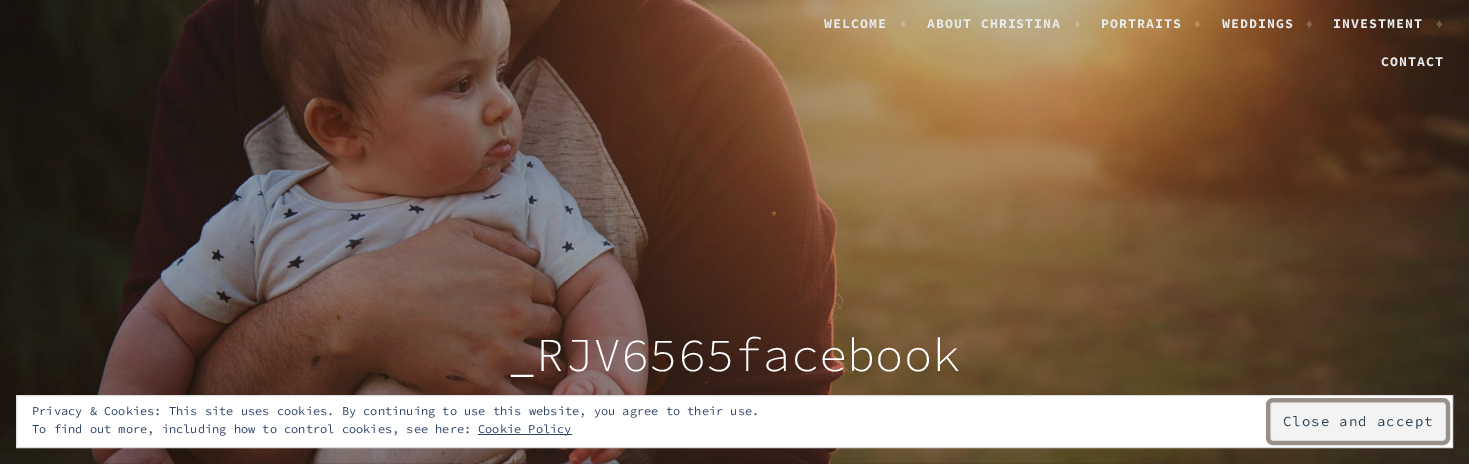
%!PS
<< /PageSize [1469 464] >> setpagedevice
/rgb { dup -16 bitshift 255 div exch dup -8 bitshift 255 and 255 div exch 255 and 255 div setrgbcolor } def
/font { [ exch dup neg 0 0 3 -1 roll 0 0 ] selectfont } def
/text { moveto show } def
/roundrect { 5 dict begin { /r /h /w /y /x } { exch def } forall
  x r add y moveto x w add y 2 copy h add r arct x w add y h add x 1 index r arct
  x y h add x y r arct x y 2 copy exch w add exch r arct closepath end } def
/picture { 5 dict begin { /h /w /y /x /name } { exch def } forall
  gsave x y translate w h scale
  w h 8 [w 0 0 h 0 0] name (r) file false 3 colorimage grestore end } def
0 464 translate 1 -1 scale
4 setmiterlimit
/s1 { /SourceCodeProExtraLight-Light 47.1 font 16#FFFFFF rgb } def
/s2 { /SourceCodeProExtraLight-Regular 12 font 16#2E4467 rgb } def
16#1E1C1B rgb
0 0 1469 464 rectfill
(pic1.raw) 0 0 1469 464 picture
/SourceCodeProExtraLight-Bold 13.25 font
16#E8E9EA rgb
824 28 moveto 1 0 (WELCOME) ashow
/LiberationSans-Bold 13.25 font
16#C6B391 rgb
900 28 moveto 1 0 (♦) ashow
/SourceCodeProExtraLight-Bold 13.25 font
16#E8E9EA rgb
927 28 moveto 1 0 (ABOUT CHRISTINA) ashow
/LiberationSans-Bold 13.25 font
16#C6B391 rgb
1074 28 moveto 1 0 (♦) ashow
/SourceCodeProExtraLight-Bold 13.25 font
16#E8E9EA rgb
1101 28 moveto 1 0 (PORTRAITS) ashow
/LiberationSans-Bold 13.25 font
16#B38E64 rgb
1194 28 moveto 1 0 (♦) ashow
/SourceCodeProExtraLight-Bold 13.25 font
16#E8E9EA rgb
1222 28 moveto 1 0 (WEDDINGS) ashow
/LiberationSans-Bold 13.25 font
16#8A6652 rgb
1306 28 moveto 1 0 (♦) ashow
/SourceCodeProExtraLight-Bold 13.25 font
16#E8E9EA rgb
1333 28 moveto 1 0 (INVESTMENT) ashow
/LiberationSans-Bold 13.25 font
16#6B594B rgb
1436 28 moveto 1 0 (♦) ashow
/SourceCodeProExtraLight-Bold 13.25 font
16#E8E9EA rgb
1381 66 moveto 1 0 (CONTACT) ashow
s1
(_RJV6565facebook) 508 371 text
16.5 395.5 moveto 1452.5 395.5 lineto 1452.5 447.5 lineto 16.5 447.5 lineto closepath gsave fill grestore
16#DEDEDE rgb
stroke
s2
(Privacy & Cookies: This site uses cookies. By continuing to use this website, you agree to their use.) 32 415 text
(To find out more, including how to control cookies, see here:) 32 433 text
478 434 94 1 rectfill
(Cookie Policy) 478 433 text
16#F3F3F3 rgb
1270.5 402.5 175 38 2.5 roundrect gsave fill grestore
16#DEDEDE rgb
stroke
16#99908A rgb
4 setlinewidth
1268 400 180 43 5 roundrect stroke
/SourceCodeProExtraLight-Regular 14 font
16#2E4453 rgb
1283 426 moveto 1 0 (Close and accept) ashow
showpage
